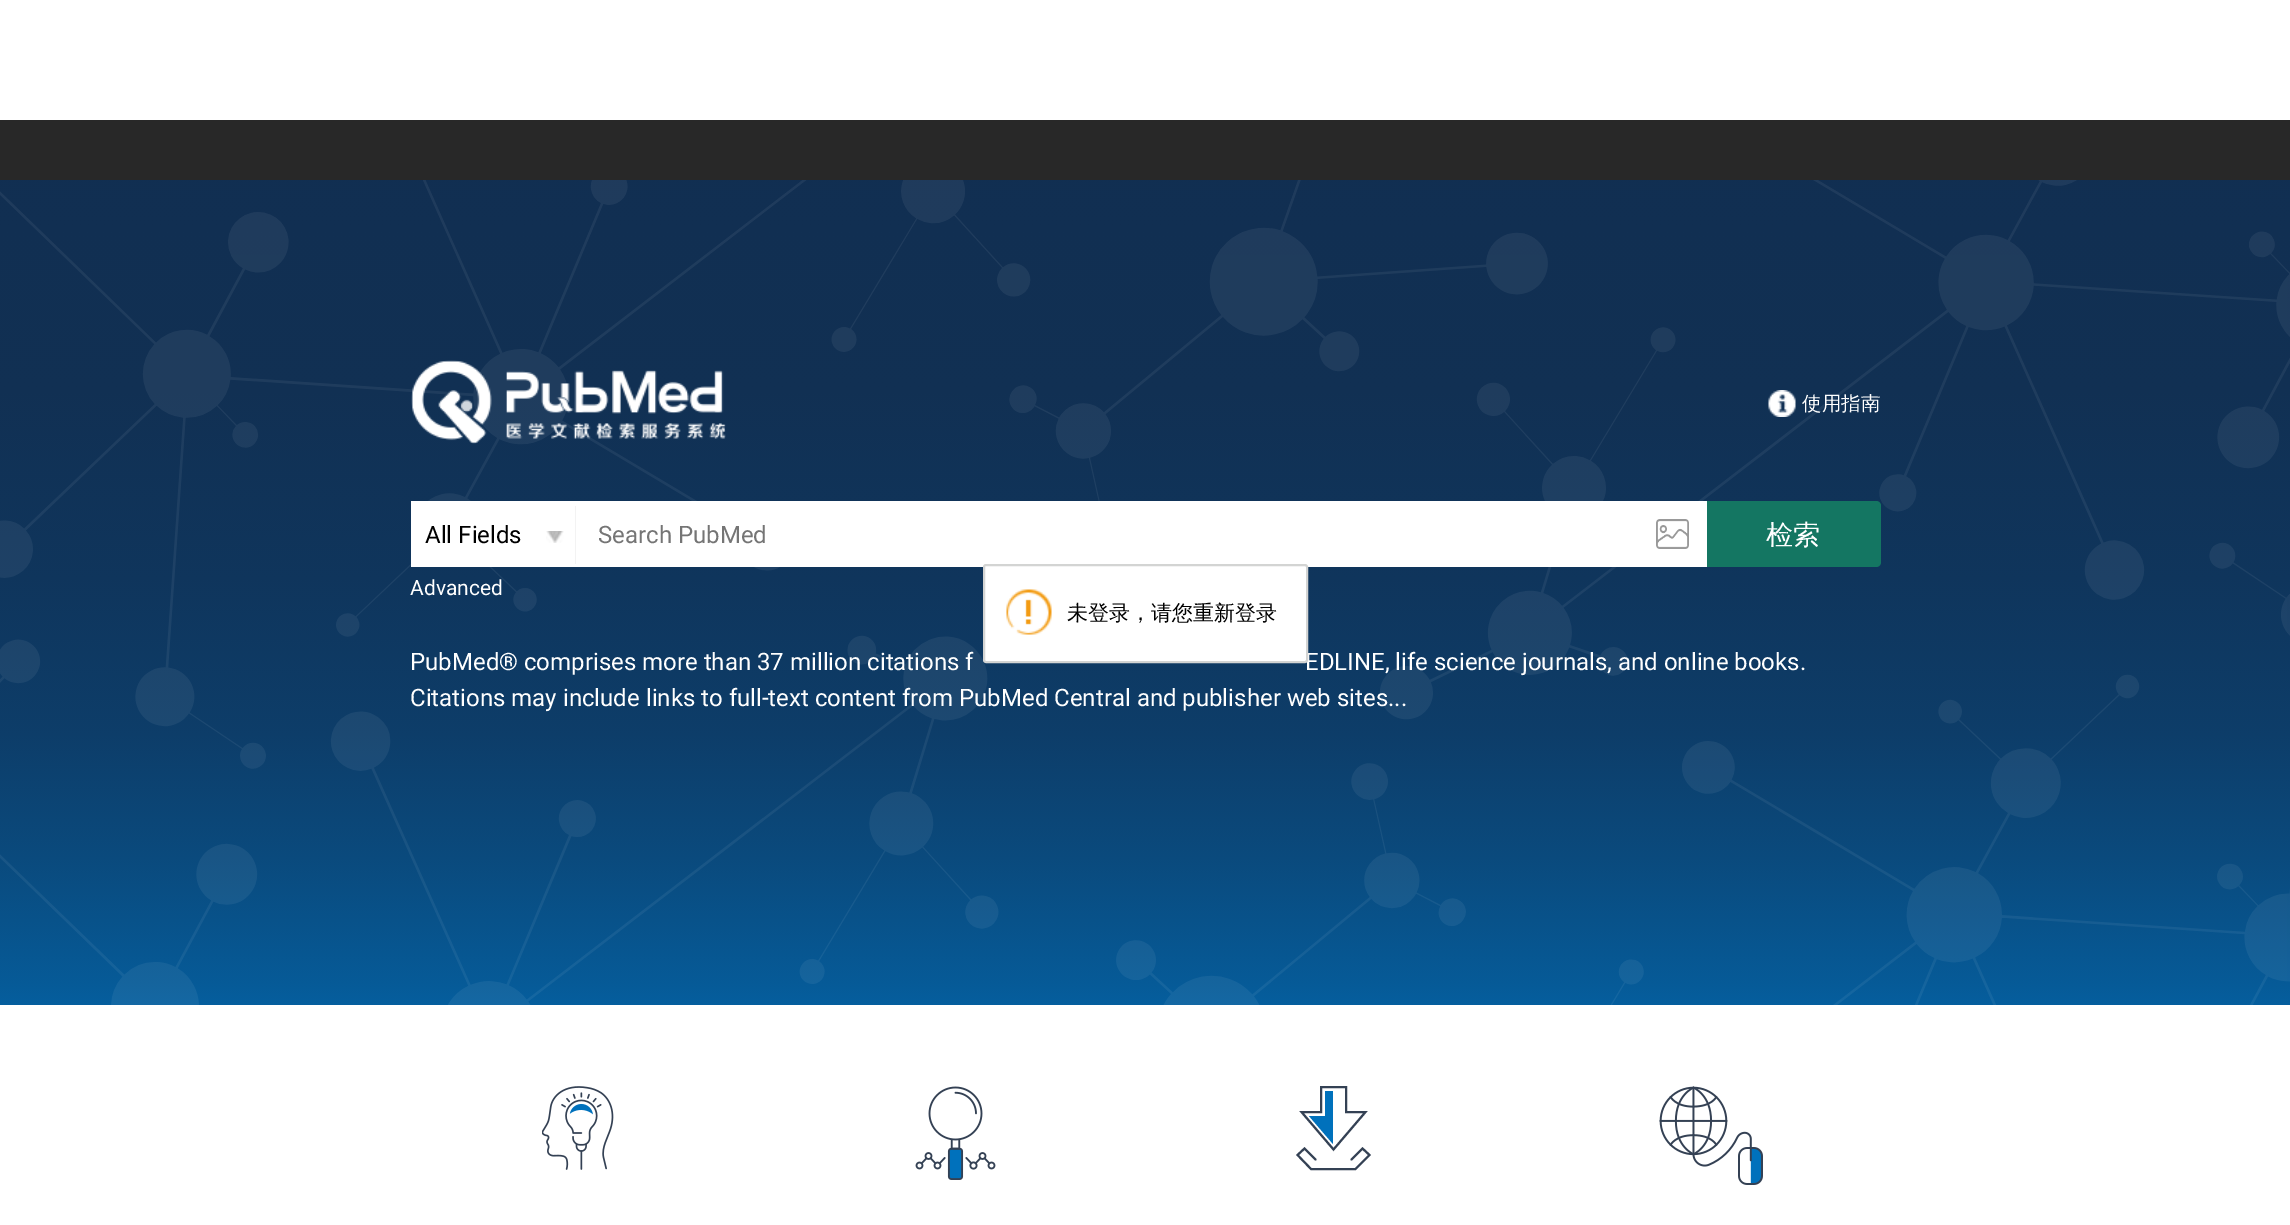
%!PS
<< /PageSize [2290 1225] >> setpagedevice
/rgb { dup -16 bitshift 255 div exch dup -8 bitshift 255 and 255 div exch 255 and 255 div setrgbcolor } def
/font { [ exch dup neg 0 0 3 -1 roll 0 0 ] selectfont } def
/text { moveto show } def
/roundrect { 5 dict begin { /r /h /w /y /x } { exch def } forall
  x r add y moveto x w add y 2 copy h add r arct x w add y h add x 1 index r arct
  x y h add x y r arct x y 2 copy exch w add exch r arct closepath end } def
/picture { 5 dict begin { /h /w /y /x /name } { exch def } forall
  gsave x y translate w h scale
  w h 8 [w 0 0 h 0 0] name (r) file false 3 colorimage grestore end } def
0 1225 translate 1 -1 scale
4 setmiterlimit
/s1 { /WenQuanYiZenHei-Medium 19.5 font 16#FFFFFF rgb } def
/s2 { /Roboto-Regular 24 font 16#000000 rgb } def
/s3 { /Roboto-Regular 24 font 16#757575 rgb } def
/s4 { /WenQuanYiZenHei-Medium 27 font 16#FFFFFF rgb } def
/s5 { /Roboto-Regular 21 font 16#FFFFFF rgb } def
/s6 { /Roboto-Regular 24 font 16#FFFFFF rgb } def
/s7 { /WenQuanYiZenHei-Medium 21 font 16#000000 rgb } def
16#FFFFFF rgb
0 0 2290 1225 rectfill
16#282828 rgb
0 120 2290 60 rectfill
(pic1.raw) 0 180 2290 825 picture
(pic2.raw) 411 360 315 84 picture
(pic3.raw) 1768 390 28 27 picture
s1
(使用指南) 1802 410 text
411 501 moveto 1873 501 lineto 1877.5 501 1881 504.5 1881 509 curveto 1881 559 lineto 1881 563.5 1877.5 567 1873 567 curveto 411 567 lineto closepath fill
(pic4.raw) 546 531 18 12 picture
16#F3F3F3 rgb
575 506 1 58 rectfill
s2
(All Fields) 425 543 text
s3
(Search PubMed) 598 543 text
(pic5.raw) 1656 519 33 30 picture
16#147662 rgb
1707 501 moveto 1876 501 lineto 1879 501 1881 503 1881 506 curveto 1881 562 lineto 1881 565 1879 567 1876 567 curveto 1707 567 lineto closepath fill
s4
(检索) 1766 544 text
s5
(Advanced) 410 595 text
s6
(PubMed® comprises more than 37 million citations f) 410 670 text
(EDLINE, life science journals, and online books.) 1305 670 text
(Citations may include links to full-text content from PubMed Central and publisher web sites...) 410 706 text
984 565 323 97 2 roundrect gsave fill grestore
16#D3D4D3 rgb
2 setlinewidth
stroke
(pic6.raw) 1006 589 46 46 picture
s7
(未登录，请您重新登录) 1067 620 text
(pic7.raw) 542 1086 72 84 picture
(pic8.raw) 915 1086 81 94 picture
16#344154 rgb
1 setlinecap
1333.5 1149.5 moveto 1301.5 1112 lineto 1321 1112 lineto 1321 1087 lineto 1346 1087 lineto 1346 1112 lineto 1365.5 1112 lineto closepath stroke
1351.5 1159.5 moveto 1362.5 1148.5 lineto 1369.5 1155 lineto 1355.5 1169 lineto 1311 1169 lineto 1297.5 1155 lineto 1304.5 1148.5 lineto 1315.5 1159.5 lineto stroke
16#0071BC rgb
1325 1091 moveto 1325 1116 lineto 1309 1116 lineto 1333 1144 lineto 1333 1091 lineto closepath fill
(pic9.raw) 1659 1086 104 99 picture
showpage
